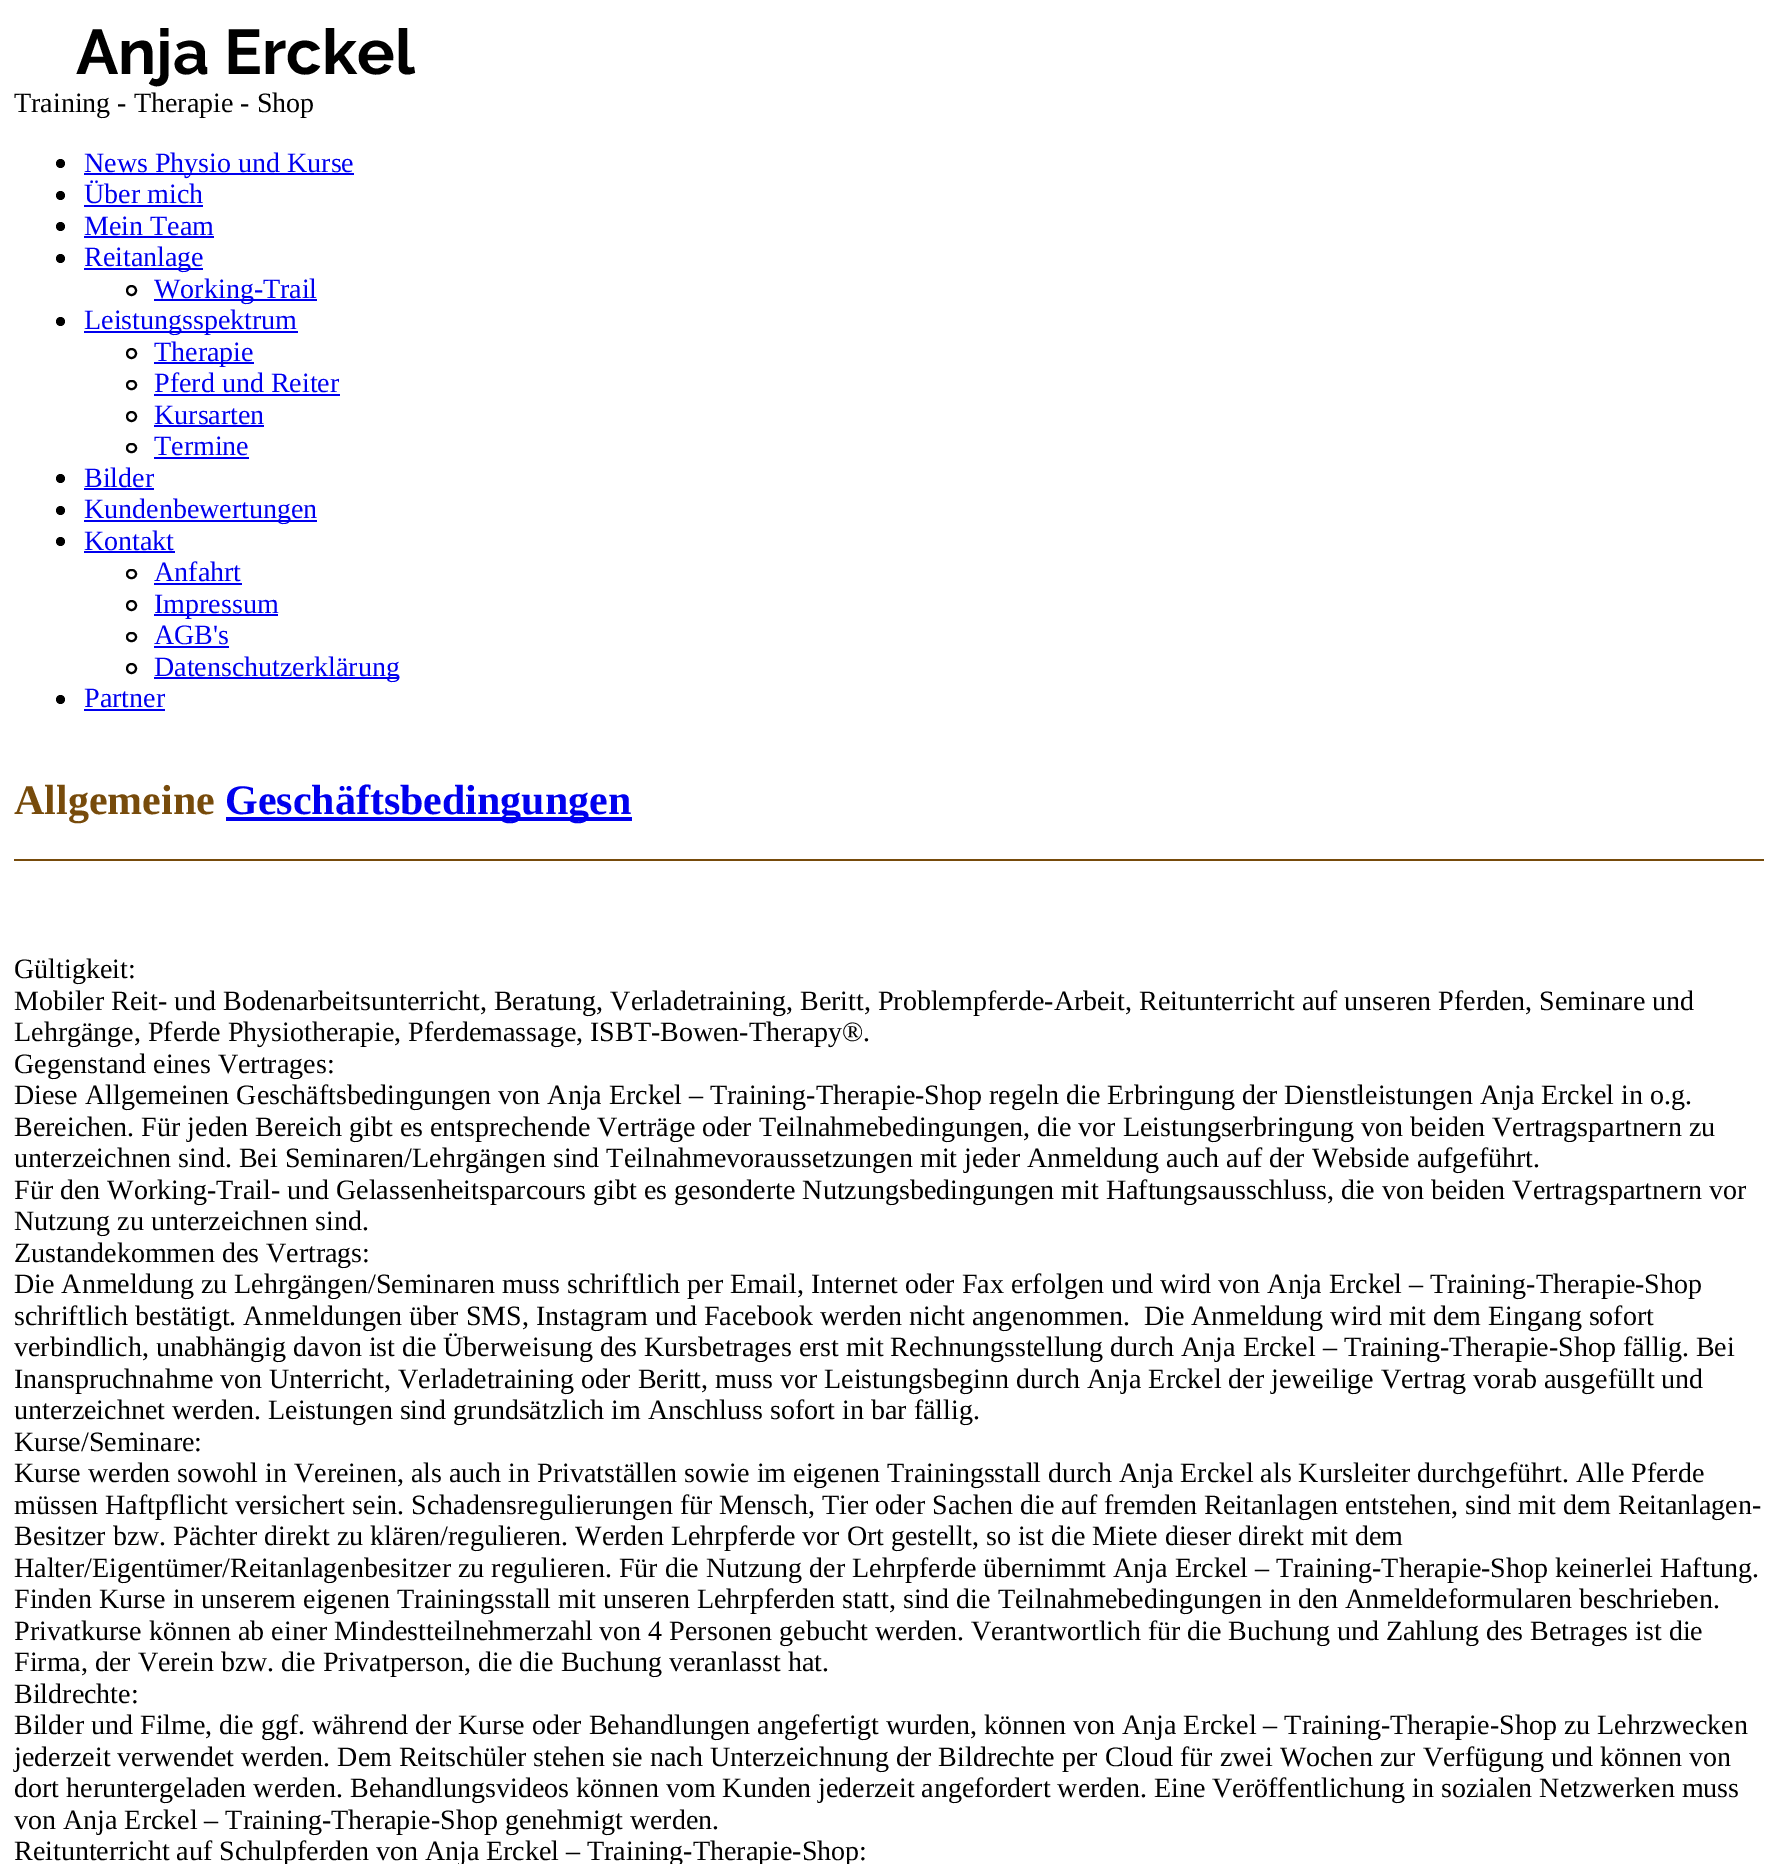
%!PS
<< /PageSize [1778 1864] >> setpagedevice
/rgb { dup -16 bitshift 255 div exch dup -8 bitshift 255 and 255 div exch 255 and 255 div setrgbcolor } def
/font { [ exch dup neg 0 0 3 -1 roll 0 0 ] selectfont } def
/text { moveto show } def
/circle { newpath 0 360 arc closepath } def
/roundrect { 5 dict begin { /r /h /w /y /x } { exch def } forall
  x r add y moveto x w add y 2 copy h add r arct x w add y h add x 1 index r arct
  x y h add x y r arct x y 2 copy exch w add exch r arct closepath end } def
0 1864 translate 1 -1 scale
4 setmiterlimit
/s1 { /Raleway-Bold 63 font 16#000000 rgb } def
/s2 { /LiberationSerif-Regular 28 font 16#000000 rgb } def
/s3 { /LiberationSerif-Regular 28 font 16#0000EE rgb } def
/s4 { /LiberationSerif-Bold 42 font 16#774B0B rgb } def
/s5 { /LiberationSerif-Bold 42 font 16#0000EE rgb } def
16#FFFFFF rgb
0 0 1778 1864 rectfill
s1
(Anja Erckel) 76 74 text
s2
(Training - Therapie - Shop) 14 112 text
60.5 163.5 4.5 circle fill
16#0000EE rgb
84 173 270 2 rectfill
(News Physio und Kurse) 84 172 text
16#000000 rgb
60.5 195.5 4.5 circle fill
s3
(Über mich) 84 203 text
84 205 119 2 rectfill
16#000000 rgb
60.5 226.5 4.5 circle fill
s3
(Mein Team) 84 235 text
84 236 130 2 rectfill
16#000000 rgb
60.5 258.5 4.5 circle fill
16#0000EE rgb
84 268 119 2 rectfill
(Reitanlage) 84 266 text
16#000000 rgb
2 setlinewidth
131.5 290.5 4.5 circle stroke
16#0000EE rgb
154 299 163 2 rectfill
(Working-Trail) 154 298 text
16#000000 rgb
60.5 321.5 4.5 circle fill
16#0000EE rgb
84 331 214 2 rectfill
(Leistungsspektrum) 84 329 text
16#000000 rgb
131.5 353.5 4.5 circle stroke
16#0000EE rgb
154 362 100 2 rectfill
(Therapie) 154 361 text
16#000000 rgb
127 381 9 8 4 roundrect stroke
s3
(Pferd und Reiter) 154 392 text
154 394 186 2 rectfill
16#000000 rgb
131.5 416.5 4.5 circle stroke
s3
(Kursarten) 154 424 text
154 425 110 2 rectfill
16#000000 rgb
127 444 9 8 4 roundrect stroke
s3
(Termine) 154 455 text
154 457 95 2 rectfill
16#000000 rgb
60.5 478.5 4.5 circle fill
s3
(Bilder) 84 487 text
84 488 70 2 rectfill
16#000000 rgb
60.5 510.5 4.5 circle fill
16#0000EE rgb
84 520 233 2 rectfill
(Kundenbewertungen) 84 518 text
16#000000 rgb
60.5 541.5 4.5 circle fill
s3
(Kontakt) 84 550 text
84 551 91 2 rectfill
16#000000 rgb
127 570 9 8 4 roundrect stroke
s3
(Anfahrt) 154 581 text
154 583 88 2 rectfill
16#000000 rgb
131.5 605.5 4.5 circle stroke
16#0000EE rgb
154 614 124 2 rectfill
(Impressum) 154 613 text
16#000000 rgb
127 633 9 8 4 roundrect stroke
s3
(AGB's) 154 644 text
154 646 75 2 rectfill
16#000000 rgb
131.5 668.5 4.5 circle stroke
16#0000EE rgb
154 677 245 2 rectfill
(Datenschutzerklärung) 154 676 text
16#000000 rgb
60.5 699.5 4.5 circle fill
s3
(Partner) 84 707 text
84 709 81 2 rectfill
s4
(Allgemeine) 14 814 text
16#0000EE rgb
226 817 406 4 rectfill
(Geschäftsbedingungen) 225 814 text
16#774B0B rgb
14 859 1750 2 rectfill
s2
(Gültigkeit:) 14 978 text
(Mobiler Reit- und Bodenarbeitsunterricht, Beratung, Verladetraining, Beritt, Problempferde-Arbeit, Reitunterricht auf unseren Pferden, Seminare und) 14 1010 text
(Lehrgänge, Pferde Physiotherapie, Pferdemassage, ISBT-Bowen-Therapy®.) 14 1041 text
(Gegenstand eines Vertrages:) 14 1073 text
(Diese Allgemeinen Geschäftsbedingungen von Anja Erckel – Training-Therapie-Shop regeln die Erbringung der Dienstleistungen Anja Erckel in o.g.) 14 1104 text
(Bereichen. Für jeden Bereich gibt es entsprechende Verträge oder Teilnahmebedingungen, die vor Leistungserbringung von beiden Vertragspartnern zu) 14 1136 text
(unterzeichnen sind. Bei Seminaren/Lehrgängen sind Teilnahmevoraussetzungen mit jeder Anmeldung auch auf der Webside aufgeführt.) 14 1167 text
(Für den Working-Trail- und Gelassenheitsparcours gibt es gesonderte Nutzungsbedingungen mit Haftungsausschluss, die von beiden Vertragspartnern vor) 14 1199 text
(Nutzung zu unterzeichnen sind.) 14 1230 text
(Zustandekommen des Vertrags:) 14 1262 text
(Die Anmeldung zu Lehrgängen/Seminaren muss schriftlich per Email, Internet oder Fax erfolgen und wird von Anja Erckel – Training-Therapie-Shop) 14 1293 text
(schriftlich bestätigt. Anmeldungen über SMS, Instagram und Facebook werden nicht angenommen.  Die Anmeldung wird mit dem Eingang sofort) 14 1325 text
(verbindlich, unabhängig davon ist die Überweisung des Kursbetrages erst mit Rechnungsstellung durch Anja Erckel – Training-Therapie-Shop fällig. Bei) 14 1356 text
(Inanspruchnahme von Unterricht, Verladetraining oder Beritt, muss vor Leistungsbeginn durch Anja Erckel der jeweilige Vertrag vorab ausgefüllt und) 14 1388 text
(unterzeichnet werden. Leistungen sind grundsätzlich im Anschluss sofort in bar fällig.) 14 1419 text
(Kurse/Seminare:) 14 1451 text
(Kurse werden sowohl in Vereinen, als auch in Privatställen sowie im eigenen Trainingsstall durch Anja Erckel als Kursleiter durchgeführt. Alle Pferde) 14 1482 text
(müssen Haftpflicht versichert sein. Schadensregulierungen für Mensch, Tier oder Sachen die auf fremden Reitanlagen entstehen, sind mit dem Reitanlagen-) 14 1514 text
(Besitzer bzw. Pächter direkt zu klären/regulieren. Werden Lehrpferde vor Ort gestellt, so ist die Miete dieser direkt mit dem) 14 1545 text
(Halter/Eigentümer/Reitanlagenbesitzer zu regulieren. Für die Nutzung der Lehrpferde übernimmt Anja Erckel – Training-Therapie-Shop keinerlei Haftung.) 14 1577 text
(Finden Kurse in unserem eigenen Trainingsstall mit unseren Lehrpferden statt, sind die Teilnahmebedingungen in den Anmeldeformularen beschrieben.) 14 1608 text
(Privatkurse können ab einer Mindestteilnehmerzahl von 4 Personen gebucht werden. Verantwortlich für die Buchung und Zahlung des Betrages ist die) 14 1640 text
(Firma, der Verein bzw. die Privatperson, die die Buchung veranlasst hat.) 14 1671 text
(Bildrechte:) 14 1703 text
(Bilder und Filme, die ggf. während der Kurse oder Behandlungen angefertigt wurden, können von Anja Erckel – Training-Therapie-Shop zu Lehrzwecken) 14 1734 text
(jederzeit verwendet werden. Dem Reitschüler stehen sie nach Unterzeichnung der Bildrechte per Cloud für zwei Wochen zur Verfügung und können von) 14 1766 text
(dort heruntergeladen werden. Behandlungsvideos können vom Kunden jederzeit angefordert werden. Eine Veröffentlichung in sozialen Netzwerken muss) 14 1797 text
(von Anja Erckel – Training-Therapie-Shop genehmigt werden.) 14 1829 text
(Reitunterricht auf Schulpferden von Anja Erckel – Training-Therapie-Shop:) 14 1860 text
showpage
